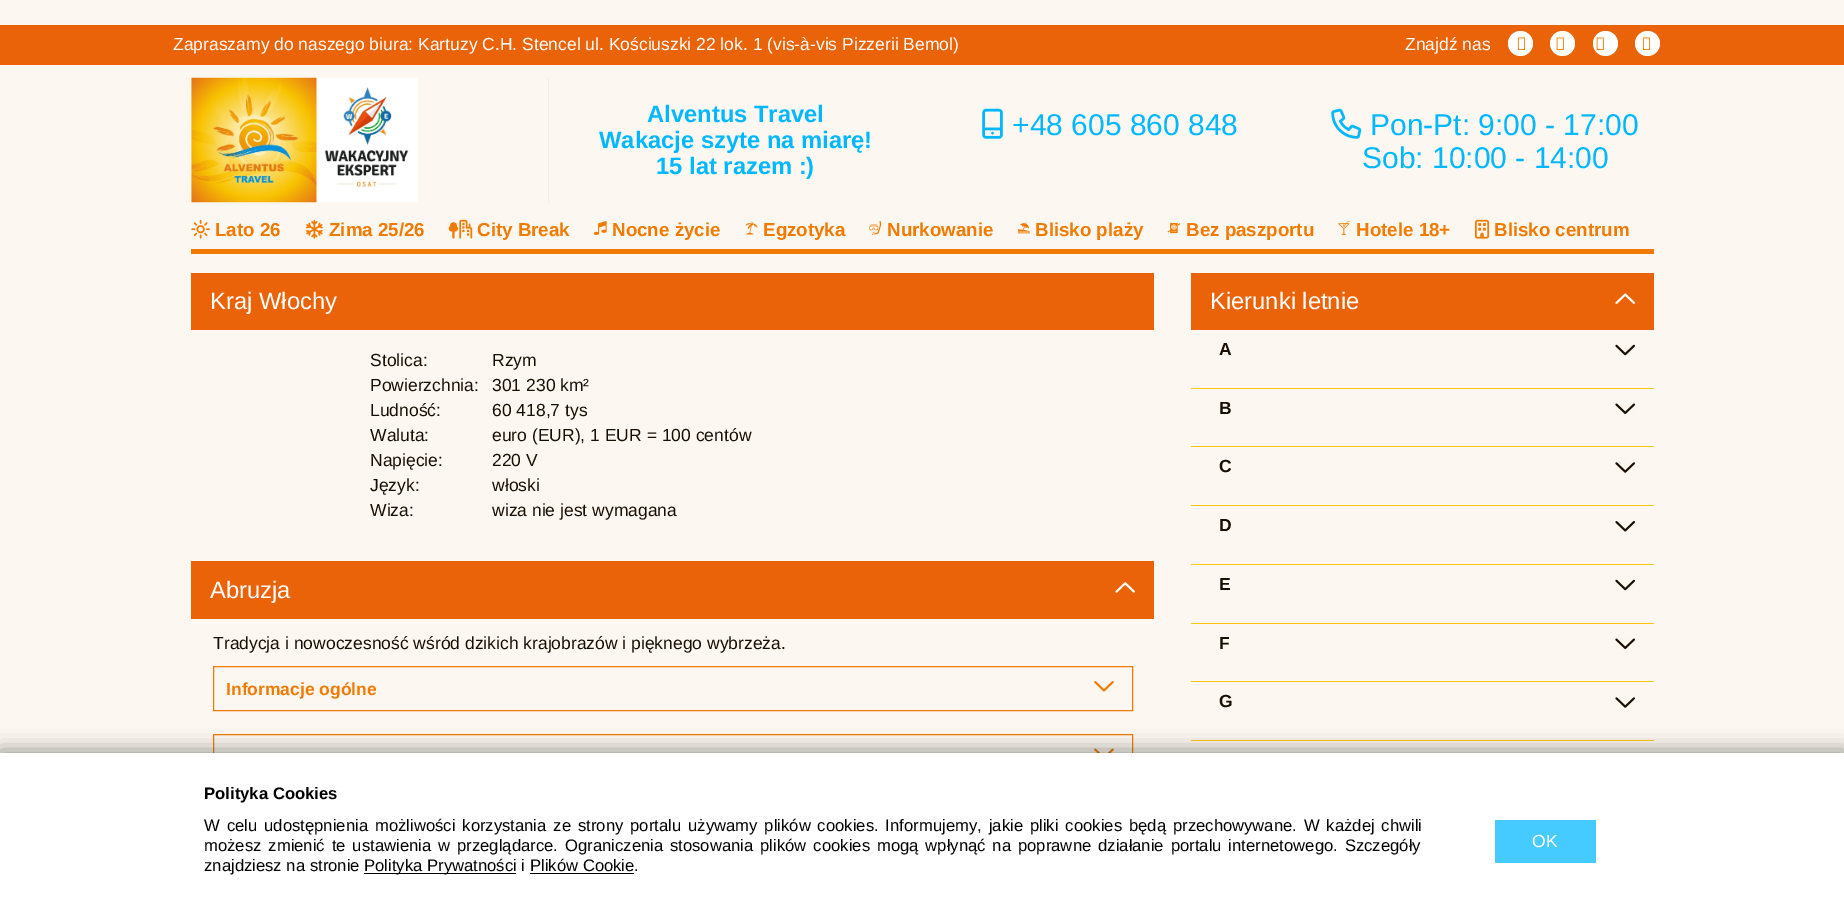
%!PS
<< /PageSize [1844 920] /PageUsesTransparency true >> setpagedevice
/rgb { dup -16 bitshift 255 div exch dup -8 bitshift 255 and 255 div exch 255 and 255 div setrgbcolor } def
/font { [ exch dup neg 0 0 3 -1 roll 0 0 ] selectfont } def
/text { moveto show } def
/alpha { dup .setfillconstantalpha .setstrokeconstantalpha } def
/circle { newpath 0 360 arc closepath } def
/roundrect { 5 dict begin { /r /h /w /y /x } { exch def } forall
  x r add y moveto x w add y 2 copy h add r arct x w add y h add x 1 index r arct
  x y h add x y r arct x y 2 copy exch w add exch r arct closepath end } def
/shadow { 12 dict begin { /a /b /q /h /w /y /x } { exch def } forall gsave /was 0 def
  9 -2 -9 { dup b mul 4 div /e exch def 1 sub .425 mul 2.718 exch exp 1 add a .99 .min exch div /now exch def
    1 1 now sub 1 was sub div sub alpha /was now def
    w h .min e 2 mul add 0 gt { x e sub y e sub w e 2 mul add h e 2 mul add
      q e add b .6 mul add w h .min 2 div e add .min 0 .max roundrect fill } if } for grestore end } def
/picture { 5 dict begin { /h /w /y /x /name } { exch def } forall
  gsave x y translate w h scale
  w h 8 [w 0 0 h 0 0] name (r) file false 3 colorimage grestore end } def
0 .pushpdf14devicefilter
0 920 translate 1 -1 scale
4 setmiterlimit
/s1 { /LiberationSans-Regular 17.5 font 16#FFFFFF rgb } def
/s2 { /LiberationSans-Bold 23.75 font 16#00B8FF rgb } def
/s3 { /LiberationSans-Regular 30 font 16#00B8FF rgb } def
/s4 { /LiberationSans-Bold 18.75 font 16#F07A02 rgb } def
/s5 { /LiberationSans-Regular 23.75 font 16#FFFFFF rgb } def
/s6 { /LiberationSans-Regular 17.5 font 16#180F04 rgb } def
/s7 { /LiberationSans-Bold 17.5 font 16#F07A02 rgb } def
/s8 { /LiberationSans-Bold 17.5 font 16#180F04 rgb } def
/s9 { /LiberationSans-Bold 16.67 font 16#000000 rgb } def
/s10 { /LiberationSans-Regular 16.67 font 16#000000 rgb } def
16#FCF7F0 rgb
0 0 1844 920 rectfill
16#EA6308 rgb
0 25 1844 40 rectfill
s1
(Zapraszamy do naszego biura: Kartuzy C.H. Stencel ul. Kościuszki 22 lok. 1 \(vis-à-vis Pizzerii Bemol\)) 173 50 text
(Znajdź nas) 1405 50 text
1520.5 43.5 12.5 circle fill
(pic1.raw) 1517 37 9 13 picture
1562.5 43.5 12.5 circle fill
(pic2.raw) 1556 37 8 13 picture
1605.5 43.5 12.5 circle fill
(pic2.raw) 1596 37 8 13 picture
1647.5 43.5 12.5 circle fill
(pic1.raw) 1642 37 9 13 picture
(pic3.raw) 191 77 227 126 picture
16#EEEEEE rgb
548 78 1 125 rectfill
s2
(Alventus Travel) 647 122 text
(Wakacje szyte na miarę!) 599 148 text
(15 lat razem :\)) 656 174 text
(pic4.raw) 982 108 21 31 picture
s3
(+48 605 860 848) 1012 135 text
(pic5.raw) 1331 108 31 31 picture
(Pon-Pt: 9:00 - 17:00) 1370 135 text
(Sob: 10:00 - 14:00) 1362 168 text
16#F07A02 rgb
191 249 1463 5 rectfill
(pic6.raw) 191 219 19 20 picture
s4
(Lato 26) 215 236 text
(pic7.raw) 306 219 17 20 picture
(Zima 25/26) 329 236 text
(pic8.raw) 448 219 25 20 picture
(City Break) 477 236 text
(pic9.raw) 593 221 14 14 picture
(Nocne życie) 612 236 text
(pic10.raw) 745 221 13 14 picture
(Egzotyka) 763 236 text
(pic11.raw) 869 221 13 14 picture
(Nurkowanie) 887 236 text
(pic12.raw) 1017 222 13 12 picture
(Blisko plaży) 1035 236 text
(pic13.raw) 1167 223 14 11 picture
(Bez paszportu) 1186 236 text
(pic14.raw) 1338 221 12 14 picture
(Hotele 18+) 1356 236 text
(pic15.raw) 1475 219 15 20 picture
(Blisko centrum) 1494 236 text
16#EA6308 rgb
191 273 963 57 rectfill
s5
(Kraj Włochy) 210 309 text
s6
(Stolica:) 370 366 text
(Rzym) 492 366 text
(Powierzchnia:) 370 391 text
(301 230 km²) 492 391 text
(Ludność:) 370 416 text
(60 418,7 tys) 492 416 text
(Waluta:) 370 441 text
(euro \(EUR\), 1 EUR = 100 centów) 492 441 text
(Napięcie:) 370 466 text
(220 V) 492 466 text
(Język:) 370 491 text
(włoski) 492 491 text
(Wiza:) 370 516 text
(wiza nie jest wymagana) 492 516 text
16#EA6308 rgb
191 561 963 58 rectfill
s5
(Abruzja) 210 598 text
(pic16.raw) 1115 582 20 11 picture
s6
(Tradycja i nowoczesność wśród dzikich krajobrazów i pięknego wybrzeża.) 213 649 text
16#F07A02 rgb
213.5 666.5 919 44 rectstroke
s7
(Informacje ogólne) 226 695 text
(pic17.raw) 1094 681 20 11 picture
213.5 734.5 919 44 rectstroke
(pic18.raw) 1094 748 20 5 picture
16#EA6308 rgb
1191 273 463 57 rectfill
s5
(Kierunki letnie) 1210 309 text
(pic19.raw) 1615 293 20 11 picture
s8
(A) 1219 355 text
(pic20.raw) 1615 344 20 12 picture
16#FFC40D rgb
1191 388 463 1 rectfill
s8
(B) 1219 414 text
(pic21.raw) 1615 403 20 11 picture
16#FFC40D rgb
1191 446 463 1 rectfill
s8
(C) 1219 472 text
(pic22.raw) 1615 462 20 11 picture
16#FFC40D rgb
1191 505 463 1 rectfill
s8
(D) 1219 531 text
(pic23.raw) 1615 521 20 11 picture
16#FFC40D rgb
1191 564 463 1 rectfill
s8
(E) 1219 590 text
(pic20.raw) 1615 579 20 12 picture
16#FFC40D rgb
1191 623 463 1 rectfill
s8
(F) 1219 649 text
(pic21.raw) 1615 638 20 11 picture
16#FFC40D rgb
1191 681 463 1 rectfill
s8
(G) 1219 707 text
(pic22.raw) 1615 697 20 11 picture
16#FFC40D rgb
1191 740 463 1 rectfill
16#323232 rgb
0 750 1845 168 0 9.5 0.5 shadow
16#FFFFFF rgb
0 753 1844 167 rectfill
s9
(Polityka Cookies) 204 799 text
/LiberationSans-Regular 16.67 font
204 831 moveto 2.25 0 32 (W celu udostępnienia możliwości korzystania ze strony portalu używamy plików cookies. Informujemy, jakie pliki cookies będą przechowywane. W każdej chwili) widthshow
204 851 moveto 2.25 0 32 (możesz zmienić te ustawienia w przeglądarce. Ograniczenia stosowania plików cookies mogą wpłynąć na poprawne działanie portalu internetowego. Szczegóły) widthshow
(znajdziesz na stronie) 204 871 text
364 873 152 1 rectfill
(Polityka Prywatności i Plików Cookie.) 364 871 text
530 873 104 1 rectfill
16#45CBFF rgb
1495 820 101 43 rectfill
s1
(OK) 1532 847 text
.poppdf14devicefilter showpage
